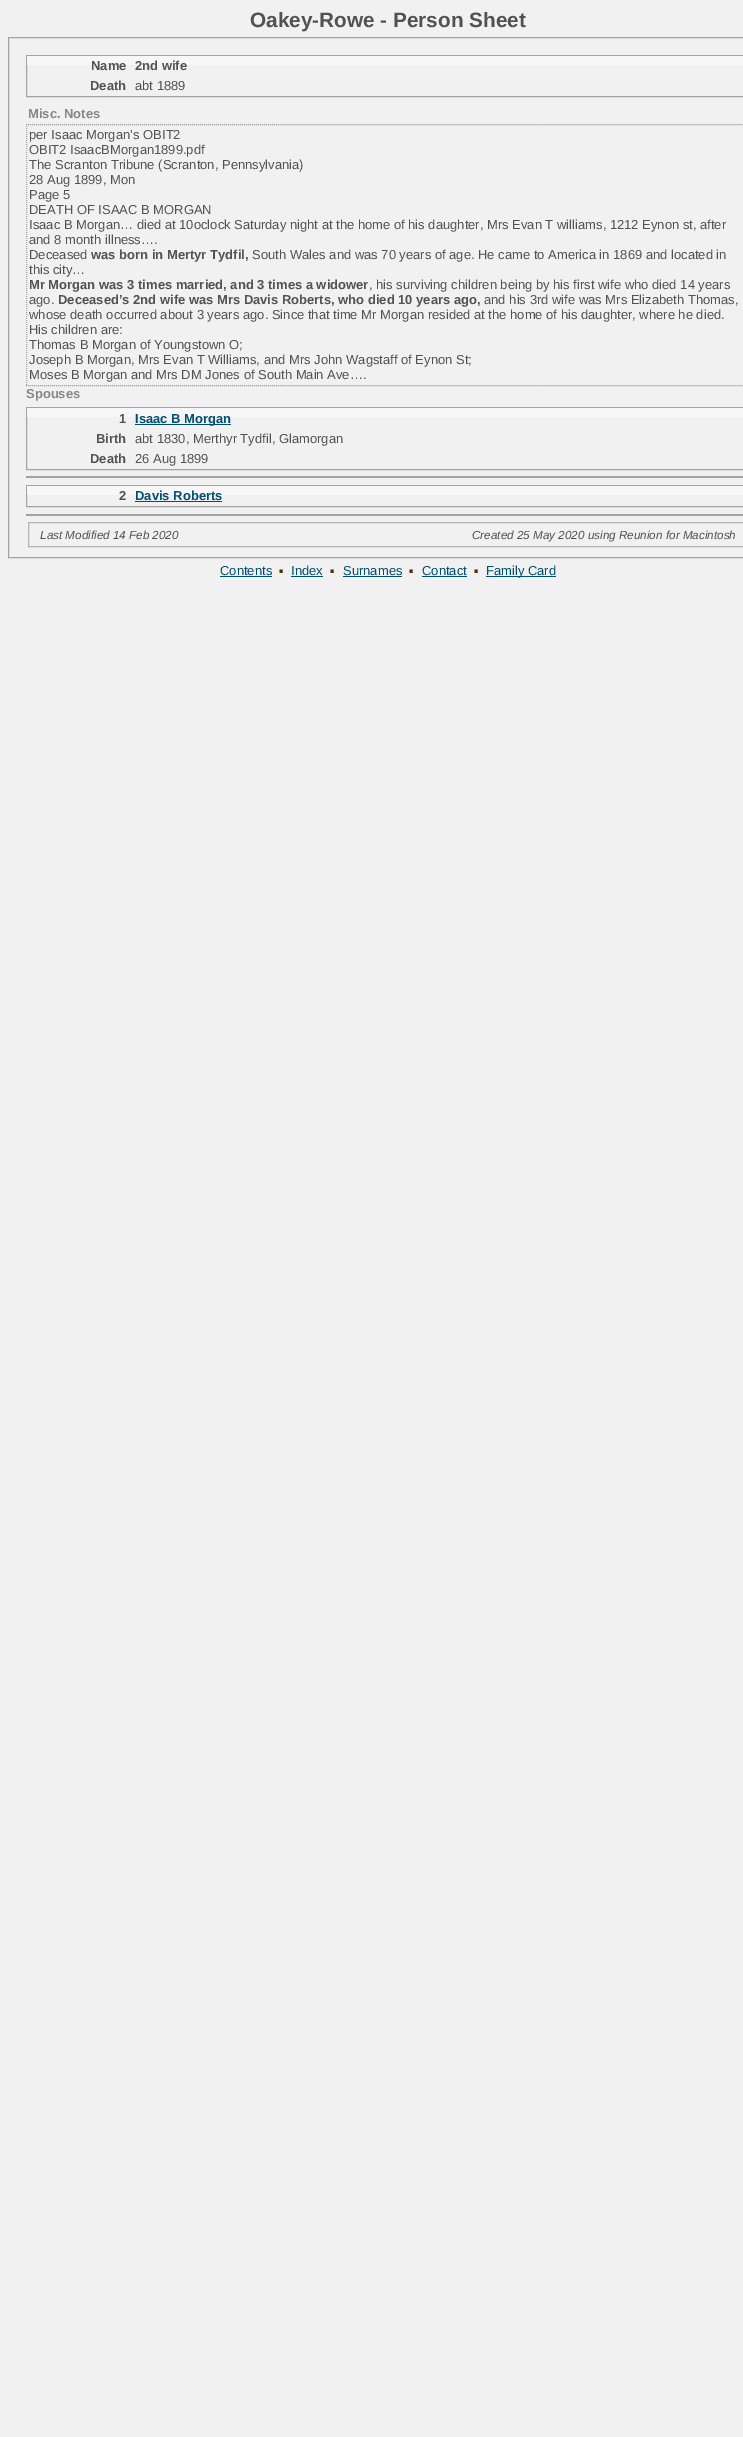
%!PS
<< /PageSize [743 2437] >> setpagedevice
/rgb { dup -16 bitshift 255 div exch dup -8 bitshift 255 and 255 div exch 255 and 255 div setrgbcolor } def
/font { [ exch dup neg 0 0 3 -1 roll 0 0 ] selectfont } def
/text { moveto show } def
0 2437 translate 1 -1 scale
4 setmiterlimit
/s1 { /LiberationSans-Bold 20.75 font 16#525252 rgb } def
/s2 { /LiberationSans-Bold 13 font 16#525252 rgb } def
/s3 { /LiberationSans-Regular 13 font 16#525252 rgb } def
/s4 { /LiberationSans-Bold 13 font 16#888888 rgb } def
/s5 { /LiberationSans-Bold 13 font 16#014E71 rgb } def
/s6 { /LiberationSans-Italic 11.7 font 16#525252 rgb } def
/s7 { /LiberationSans-Regular 13 font 16#014E71 rgb } def
/s8 { /LiberationSans-Bold 23 font 16#4D3300 rgb } def
16#F1F1F1 rgb
0 0 743 2437 rectfill
s1
(Oakey-Rowe - Person Sheet) 250 27 text
16#A3A3A3 rgb
8.5 37.5 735 520 rectstroke
26.5 55.5 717 41 rectstroke
16#F7F7F7 rgb
27 56 716 9 rectfill
s2
(Name) 91 70 text
(2nd wife) 135 70 text
(Death) 90 90 text
s3
(abt 1889) 135 90 text
s4
(Misc. Notes) 28 118 text
16#A3A3A3 rgb
[1 1] 0 setdash
26 124.5 moveto 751 124.5 lineto stroke
26 385.5 moveto 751 385.5 lineto stroke
26.5 124 moveto 26.5 386 lineto stroke
s3
(per Isaac Morgan’s OBIT2) 29 139 text
(OBIT2 IsaacBMorgan1899.pdf) 29 154 text
(The Scranton Tribune \(Scranton, Pennsylvania\)) 29 169 text
(28 Aug 1899, Mon) 29 184 text
(Page 5) 29 199 text
(DEATH OF ISAAC B MORGAN) 29 214 text
(Isaac B Morgan… died at 10oclock Saturday night at the home of his daughter, Mrs Evan T williams, 1212 Eynon st, after) 29 229 text
(and 8 month illness….) 29 244 text
(Deceased) 29 259 text
s2
(was born in Mertyr Tydfil,) 91 259 text
s3
(South Wales and was 70 years of age. He came to America in 1869 and located in) 252 259 text
(this city…) 29 274 text
s2
(Mr Morgan was 3 times married, and 3 times a widower) 29 289 text
s3
(, his surviving children being by his first wife who died 14 years) 369 289 text
(ago.) 29 304 text
s2
(Deceased’s 2nd wife was Mrs Davis Roberts, who died 10 years ago,) 58 304 text
s3
(and his 3rd wife was Mrs Elizabeth Thomas,) 484 304 text
(whose death occurred about 3 years ago. Since that time Mr Morgan resided at the home of his daughter, where he died.) 29 319 text
(His children are:) 29 334 text
(Thomas B Morgan of Youngstown O;) 29 349 text
(Joseph B Morgan, Mrs Evan T Williams, and Mrs John Wagstaff of Eynon St;) 29 364 text
(Moses B Morgan and Mrs DM Jones of South Main Ave….) 29 379 text
s4
(Spouses) 26 398 text
16#A3A3A3 rgb
[] 0 setdash
26.5 407.5 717 62 rectstroke
16#F7F7F7 rgb
27 408 716 9 rectfill
s2
(1) 119 423 text
16#014E71 rgb
135 424 96 1 rectfill
(Isaac B Morgan) 135 423 text
s2
(Birth) 96 443 text
s3
(abt 1830, Merthyr Tydfil, Glamorgan) 135 443 text
s2
(Death) 90 463 text
s3
(26 Aug 1899) 135 463 text
16#A3A3A3 rgb
26 476 717 2 rectfill
26.5 485.5 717 21 rectstroke
16#F7F7F7 rgb
27 486 716 9 rectfill
s2
(2) 119 500 text
s5
(Davis Roberts) 135 500 text
135 501 87 1 rectfill
16#A3A3A3 rgb
26 514 717 2 rectfill
16#B5B5B5 rgb
28.5 522.5 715 24 rectstroke
s6
(Last Modified 14 Feb 2020) 40 539 text
(Created 25 May 2020 using Reunion for Macintosh) 472 539 text
s7
(Contents) 220 575 text
220 576 52 1 rectfill
s8
(·) 278 579 text
s7
(Index) 291 575 text
291 576 32 1 rectfill
s8
(·) 329 579 text
s7
(Surnames) 343 575 text
343 576 59 1 rectfill
s8
(·) 408 579 text
s7
(Contact) 422 575 text
422 576 45 1 rectfill
s8
(·) 473 579 text
16#014E71 rgb
486 576 70 1 rectfill
s7
(Family Card) 486 575 text
showpage
